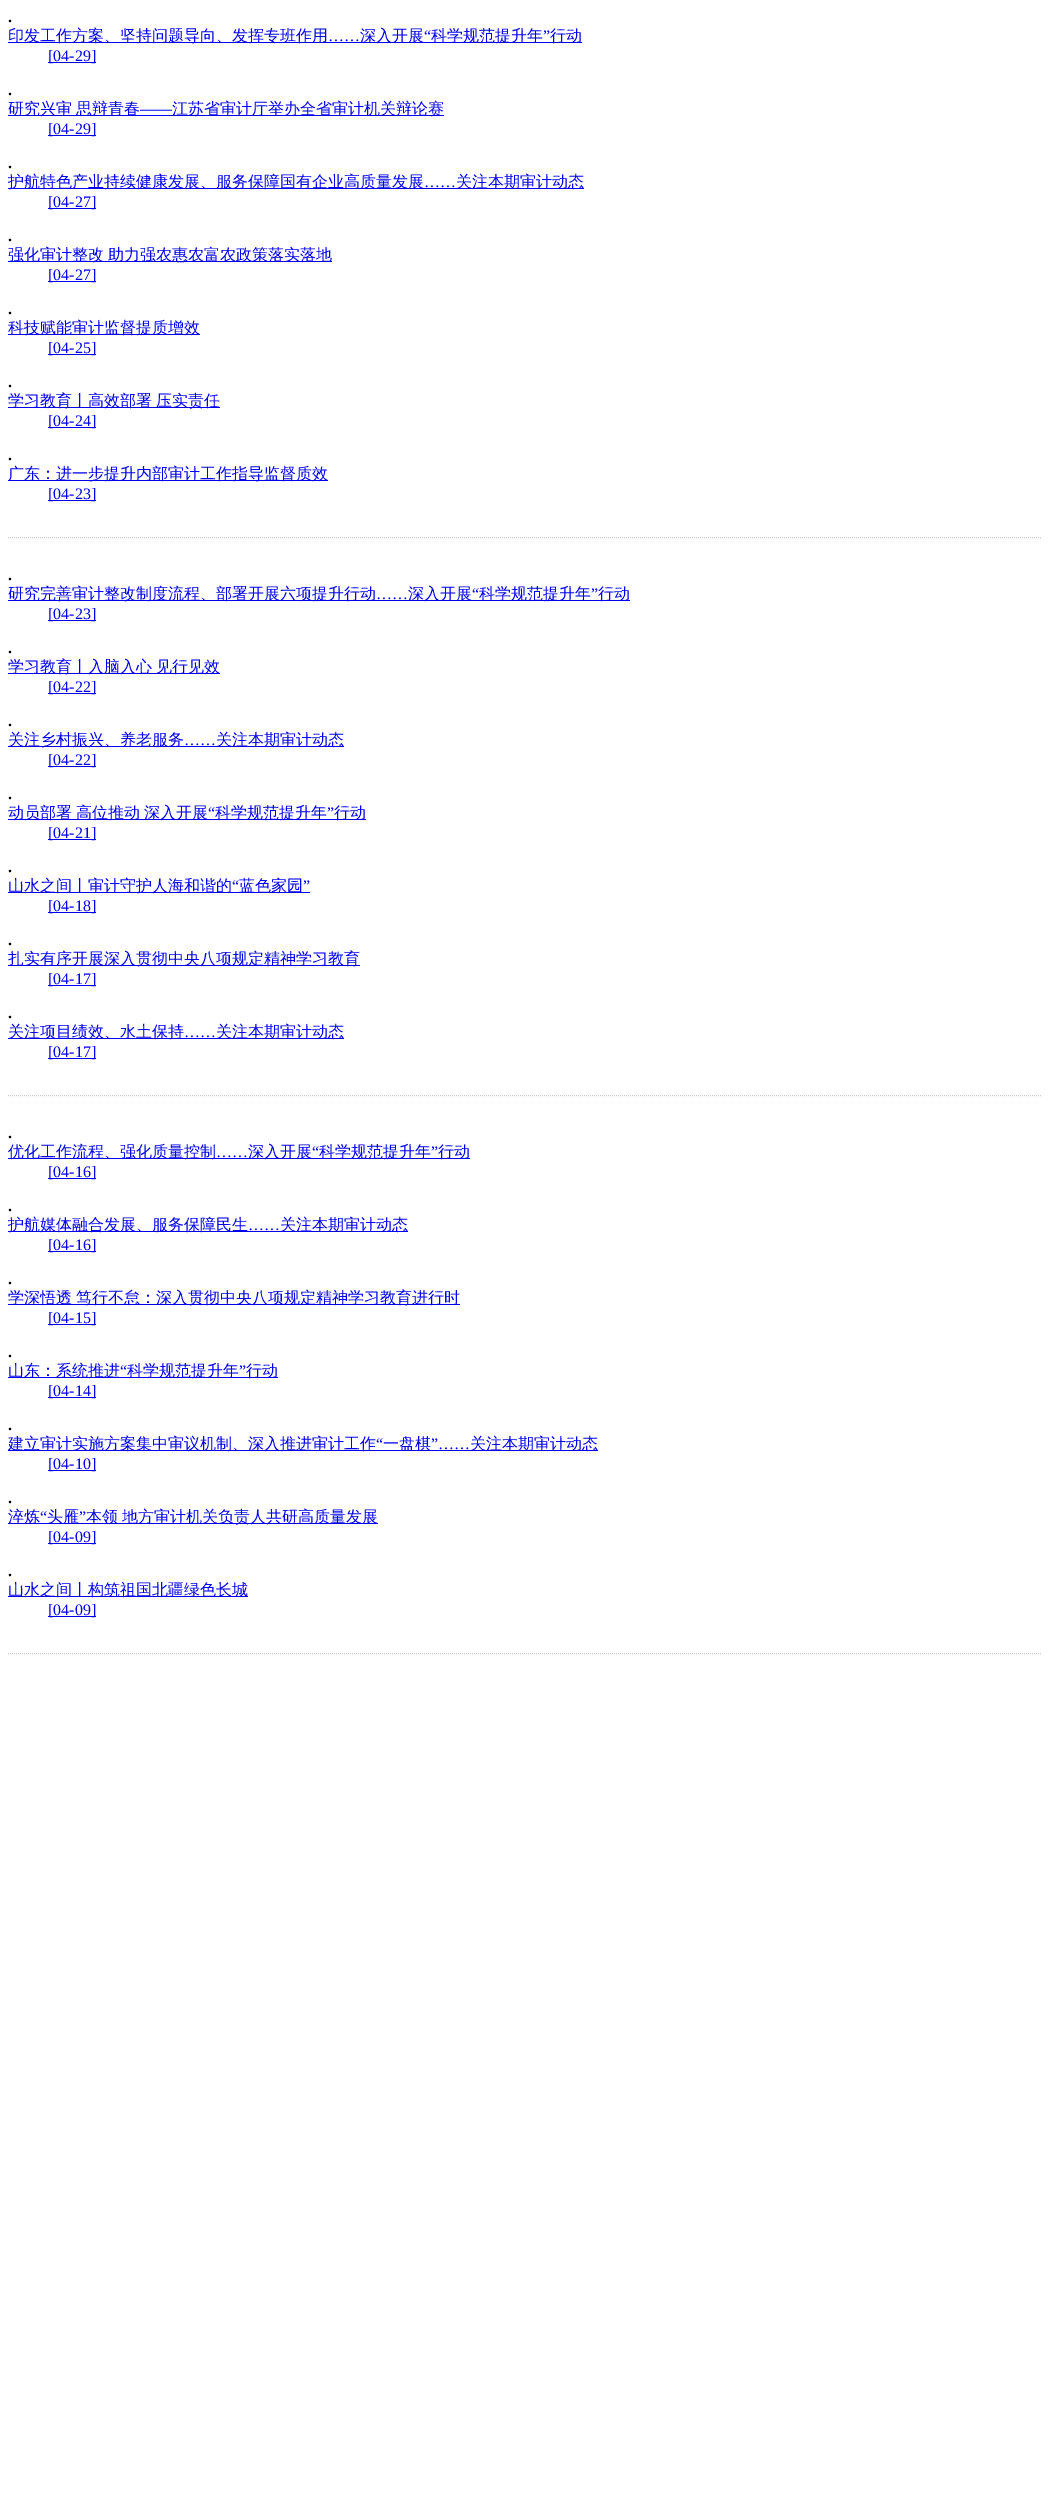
%!PS
<< /PageSize [1049 2499] >> setpagedevice
/rgb { dup -16 bitshift 255 div exch dup -8 bitshift 255 and 255 div exch 255 and 255 div setrgbcolor } def
/font { [ exch dup neg 0 0 3 -1 roll 0 0 ] selectfont } def
/text { moveto show } def
0 2499 translate 1 -1 scale
4 setmiterlimit
/s1 { /LiberationSerif-Bold 16 font 16#000000 rgb } def
/s2 { /WenQuanYiZenHei-Medium 16 font 16#0000EE rgb } def
/s3 { /LiberationSerif-Regular 16 font 16#0000EE rgb } def
16#FFFFFF rgb
0 0 1049 2499 rectfill
s1
(.) 8 22 text
16#0000EE rgb
8 42 574 1 rectfill
s2
(印发工作方案、坚持问题导向、发挥专班作用) 8 41 text
(深入开展) 360 41 text
s3
(“) 424 41 text
s2
(科学规范提升年) 431 41 text
s3
(”) 543 41 text
s2
(行动) 550 41 text
s3
(……) 328 41 text
48 62 48 1 rectfill
([04-29]) 48 61 text
s1
(.) 8 95 text
16#0000EE rgb
8 115 436 1 rectfill
/WenQuanYiZenHei-Medium 16 font
8 114 moveto -1 0 32 (研究兴审 思辩青春) widthshow
s3
(——) 140 114 text
s2
(江苏省审计厅举办全省审计机关辩论赛) 172 114 text
48 135 48 1 rectfill
s3
([04-29]) 48 134 text
s1
(.) 8 168 text
16#0000EE rgb
8 188 576 1 rectfill
s2
(护航特色产业持续健康发展、服务保障国有企业高质量发展) 8 187 text
s3
(……) 424 187 text
s2
(关注本期审计动态) 456 187 text
48 208 48 1 rectfill
s3
([04-27]) 48 207 text
s1
(.) 8 241 text
16#0000EE rgb
8 261 324 1 rectfill
/WenQuanYiZenHei-Medium 16 font
8 260 moveto -1 0 32 (强化审计整改 助力强农惠农富农政策落实落地) widthshow
48 281 48 1 rectfill
s3
([04-27]) 48 280 text
s1
(.) 8 314 text
16#0000EE rgb
8 334 192 1 rectfill
s2
(科技赋能审计监督提质增效) 8 333 text
48 354 48 1 rectfill
s3
([04-25]) 48 353 text
s1
(.) 8 387 text
16#0000EE rgb
8 407 212 1 rectfill
/WenQuanYiZenHei-Medium 16 font
8 406 moveto -1 0 32 (学习教育丨高效部署 压实责任) widthshow
48 427 48 1 rectfill
s3
([04-24]) 48 426 text
s1
(.) 8 460 text
16#0000EE rgb
8 480 320 1 rectfill
s2
(广东：进一步提升内部审计工作指导监督质效) 8 479 text
48 500 48 1 rectfill
s3
([04-23]) 48 499 text
16#CCCCCC rgb
[1 1] 0 setdash
8 537.5 moveto 1041 537.5 lineto stroke
s1
(.) 8 580 text
16#0000EE rgb
8 600 622 1 rectfill
s2
(研究完善审计整改制度流程、部署开展六项提升行动) 8 599 text
(深入开展) 408 599 text
s3
(“) 472 599 text
s2
(科学规范提升年) 479 599 text
s3
(”) 591 599 text
s2
(行动) 598 599 text
s3
(……) 376 599 text
48 620 48 1 rectfill
([04-23]) 48 619 text
s1
(.) 8 653 text
16#0000EE rgb
8 673 212 1 rectfill
/WenQuanYiZenHei-Medium 16 font
8 672 moveto -1 0 32 (学习教育丨入脑入心 见行见效) widthshow
48 693 48 1 rectfill
s3
([04-22]) 48 692 text
s1
(.) 8 726 text
16#0000EE rgb
8 746 336 1 rectfill
s2
(关注乡村振兴、养老服务) 8 745 text
s3
(……) 184 745 text
s2
(关注本期审计动态) 216 745 text
48 766 48 1 rectfill
s3
([04-22]) 48 765 text
s1
(.) 8 799 text
16#0000EE rgb
8 819 358 1 rectfill
/WenQuanYiZenHei-Medium 16 font
8 818 moveto -1 0 32 (动员部署 高位推动 深入开展) widthshow
s3
(“) 208 818 text
s2
(科学规范提升年) 215 818 text
s3
(”) 327 818 text
s2
(行动) 334 818 text
48 839 48 1 rectfill
s3
([04-21]) 48 838 text
s1
(.) 8 872 text
16#0000EE rgb
8 892 302 1 rectfill
s2
(山水之间丨审计守护人海和谐的) 8 891 text
s3
(“) 232 891 text
s2
(蓝色家园) 239 891 text
s3
(”) 303 891 text
48 912 48 1 rectfill
([04-18]) 48 911 text
s1
(.) 8 945 text
16#0000EE rgb
8 965 352 1 rectfill
s2
(扎实有序开展深入贯彻中央八项规定精神学习教育) 8 964 text
48 985 48 1 rectfill
s3
([04-17]) 48 984 text
s1
(.) 8 1018 text
16#0000EE rgb
8 1038 336 1 rectfill
s2
(关注项目绩效、水土保持) 8 1037 text
s3
(……) 184 1037 text
s2
(关注本期审计动态) 216 1037 text
48 1058 48 1 rectfill
s3
([04-17]) 48 1057 text
16#CCCCCC rgb
8 1095.5 moveto 1041 1095.5 lineto stroke
s1
(.) 8 1138 text
16#0000EE rgb
8 1158 462 1 rectfill
s2
(优化工作流程、强化质量控制) 8 1157 text
(深入开展) 248 1157 text
s3
(“) 312 1157 text
s2
(科学规范提升年) 319 1157 text
s3
(”) 431 1157 text
s2
(行动) 438 1157 text
s3
(……) 216 1157 text
48 1178 48 1 rectfill
([04-16]) 48 1177 text
s1
(.) 8 1211 text
16#0000EE rgb
8 1231 400 1 rectfill
s2
(护航媒体融合发展、服务保障民生) 8 1230 text
s3
(……) 248 1230 text
s2
(关注本期审计动态) 280 1230 text
48 1251 48 1 rectfill
s3
([04-16]) 48 1250 text
s1
(.) 8 1284 text
16#0000EE rgb
8 1304 452 1 rectfill
/WenQuanYiZenHei-Medium 16 font
8 1303 moveto -1 0 32 (学深悟透 笃行不怠：深入贯彻中央八项规定精神学习教育进行时) widthshow
48 1324 48 1 rectfill
s3
([04-15]) 48 1323 text
s1
(.) 8 1357 text
16#0000EE rgb
8 1377 270 1 rectfill
s2
(山东：系统推进) 8 1376 text
s3
(“) 120 1376 text
s2
(科学规范提升年) 127 1376 text
s3
(”) 239 1376 text
s2
(行动) 246 1376 text
48 1397 48 1 rectfill
s3
([04-14]) 48 1396 text
s1
(.) 8 1430 text
16#0000EE rgb
8 1450 590 1 rectfill
s2
(建立审计实施方案集中审议机制、深入推进审计工作) 8 1449 text
s3
(“) 376 1449 text
s2
(一盘棋) 383 1449 text
s3
(”……) 431 1449 text
s2
(关注本期审计动态) 470 1449 text
48 1470 48 1 rectfill
s3
([04-10]) 48 1469 text
s1
(.) 8 1503 text
16#0000EE rgb
8 1523 370 1 rectfill
s2
(淬炼) 8 1522 text
s3
(“) 40 1522 text
s2
(头雁) 47 1522 text
s3
(”) 79 1522 text
/WenQuanYiZenHei-Medium 16 font
86 1522 moveto -1 0 32 (本领 地方审计机关负责人共研高质量发展) widthshow
48 1543 48 1 rectfill
s3
([04-09]) 48 1542 text
s1
(.) 8 1576 text
16#0000EE rgb
8 1596 240 1 rectfill
s2
(山水之间丨构筑祖国北疆绿色长城) 8 1595 text
48 1616 48 1 rectfill
s3
([04-09]) 48 1615 text
16#CCCCCC rgb
8 1653.5 moveto 1041 1653.5 lineto stroke
showpage
